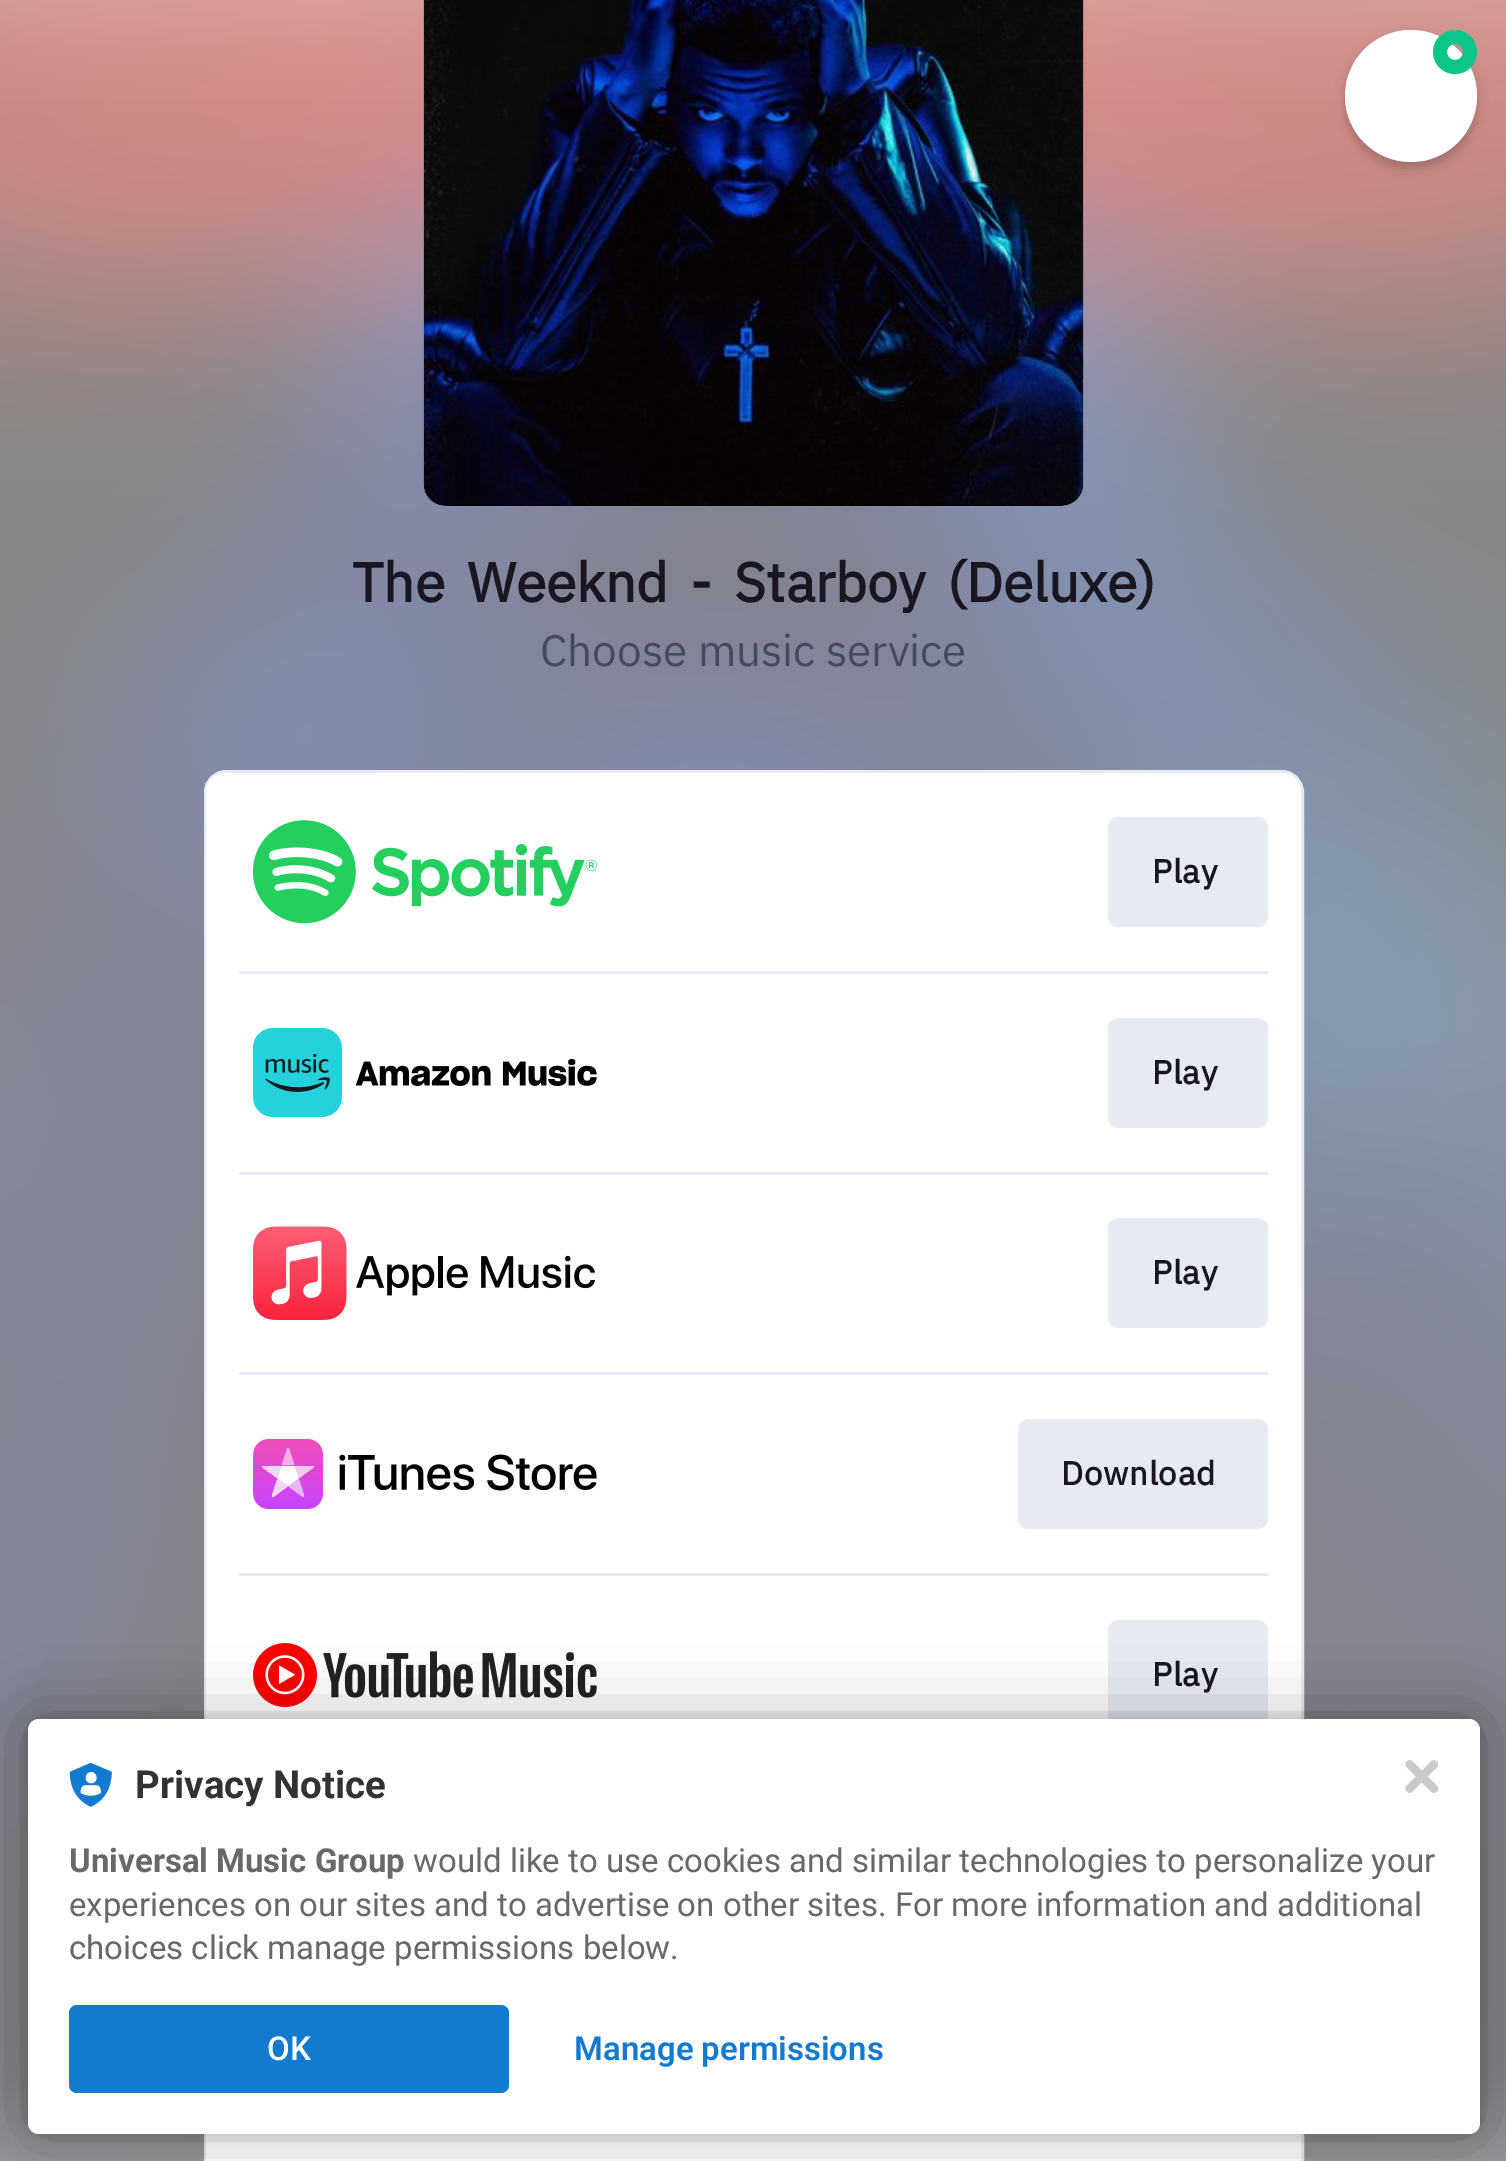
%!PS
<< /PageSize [1506 2161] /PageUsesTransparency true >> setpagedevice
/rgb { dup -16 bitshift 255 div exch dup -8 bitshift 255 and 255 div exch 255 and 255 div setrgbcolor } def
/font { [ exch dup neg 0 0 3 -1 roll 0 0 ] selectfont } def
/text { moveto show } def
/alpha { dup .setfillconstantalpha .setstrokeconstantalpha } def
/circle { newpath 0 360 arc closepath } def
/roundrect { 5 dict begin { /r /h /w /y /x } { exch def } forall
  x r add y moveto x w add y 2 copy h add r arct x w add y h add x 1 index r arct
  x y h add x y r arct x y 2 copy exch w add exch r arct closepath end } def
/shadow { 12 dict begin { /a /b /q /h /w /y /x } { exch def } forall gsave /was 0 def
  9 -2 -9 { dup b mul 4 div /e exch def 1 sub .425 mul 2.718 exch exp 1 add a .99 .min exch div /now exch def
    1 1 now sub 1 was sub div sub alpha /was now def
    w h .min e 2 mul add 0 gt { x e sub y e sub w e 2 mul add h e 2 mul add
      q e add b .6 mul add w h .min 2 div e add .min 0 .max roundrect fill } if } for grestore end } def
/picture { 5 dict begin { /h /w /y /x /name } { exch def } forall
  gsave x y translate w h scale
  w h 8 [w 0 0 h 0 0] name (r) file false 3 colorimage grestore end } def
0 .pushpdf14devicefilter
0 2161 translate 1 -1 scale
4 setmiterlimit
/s1 { /IBMPlexSans-Regular 44 font 16#454B5F rgb } def
/s2 { /Roboto-Bold 38.5 font 16#323232 rgb } def
/s3 { /Roboto-Bold 33 font 16#686868 rgb } def
/s4 { /Roboto-Regular 33 font 16#686868 rgb } def
/s5 { /Roboto-Medium 33 font 16#FFFFFF rgb } def
/s6 { /Roboto-SemiBold 33 font 16#137BCF rgb } def
16#FFFFFF rgb
0 0 1506 2161 rectfill
(pic1.raw) 0 0 1506 2161 picture
16#000000 rgb
1345 36 132 132 66 5.5 0.2 shadow
16#FFFFFF rgb
1411 96 66 circle fill
16#0DC587 rgb
14 setlinewidth
1455 52 15 circle stroke
(pic2.raw) 423 0 661 506 picture
/IBMPlexSans-Bold 55 font
16#181721 rgb
352 602 moveto 9 0 32 (The Weeknd - Starboy \(Deluxe\)) widthshow
s1
(Choose music service) 540 666 text
16#E6EAF2 rgb
3 setlinewidth
205.5 771.5 1097 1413 20.5 roundrect stroke
16#FFFFFF rgb
206 773 1095 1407 19 roundrect fill
(pic3.raw) 253 820 344 104 picture
16#E6EAF2 rgb
1108 817 160 110 11 roundrect fill
/IBMPlexSans-Bold 33 font
16#181721 rgb
1152 883 moveto 0.75 0 (Play) ashow
16#E6EAF2 rgb
239 971 1029 3 rectfill
(pic4.raw) 253 1028 344 89 picture
1108 1018 160 110 11 roundrect fill
16#181721 rgb
1152 1084 moveto 0.75 0 (Play) ashow
16#E6EAF2 rgb
239 1172 1029 3 rectfill
(pic5.raw) 253 1226 342 94 picture
1108 1218 160 110 11 roundrect fill
16#181721 rgb
1152 1284 moveto 0.75 0 (Play) ashow
16#E6EAF2 rgb
239 1372 1029 3 rectfill
(pic6.raw) 253 1439 344 70 picture
1018 1419 250 110 11 roundrect fill
16#181721 rgb
1061 1485 moveto 0.75 0 (Download) ashow
16#E6EAF2 rgb
239 1573 1029 3 rectfill
(pic7.raw) 253 1643 344 64 picture
1108 1620 160 110 11 roundrect fill
16#181721 rgb
1152 1686 moveto 0.75 0 (Play) ashow
16#000000 rgb
28 1719 1452 415 11 5.5 0.12 shadow
28 1719 1452 415 11 33 0.3 shadow
16#FFFFFF rgb
28 1719 1452 415 11 roundrect fill
(pic8.raw) 1405 1760 33 33 picture
(pic9.raw) 69 1763 43 44 picture
s2
(Privacy Notice) 135 1798 text
s3
(Universal Music Group) 69 1872 text
s4
(would like to use cookies and similar technologies to personalize your) 413 1872 text
(experiences on our sites and to advertise on other sites. For more information and additional) 69 1916 text
(choices click manage permissions below.) 69 1959 text
16#137BCF rgb
69 2005 440 88 8 roundrect fill
s5
(OK) 267 2060 text
s6
(Manage permissions) 574 2060 text
.poppdf14devicefilter showpage
